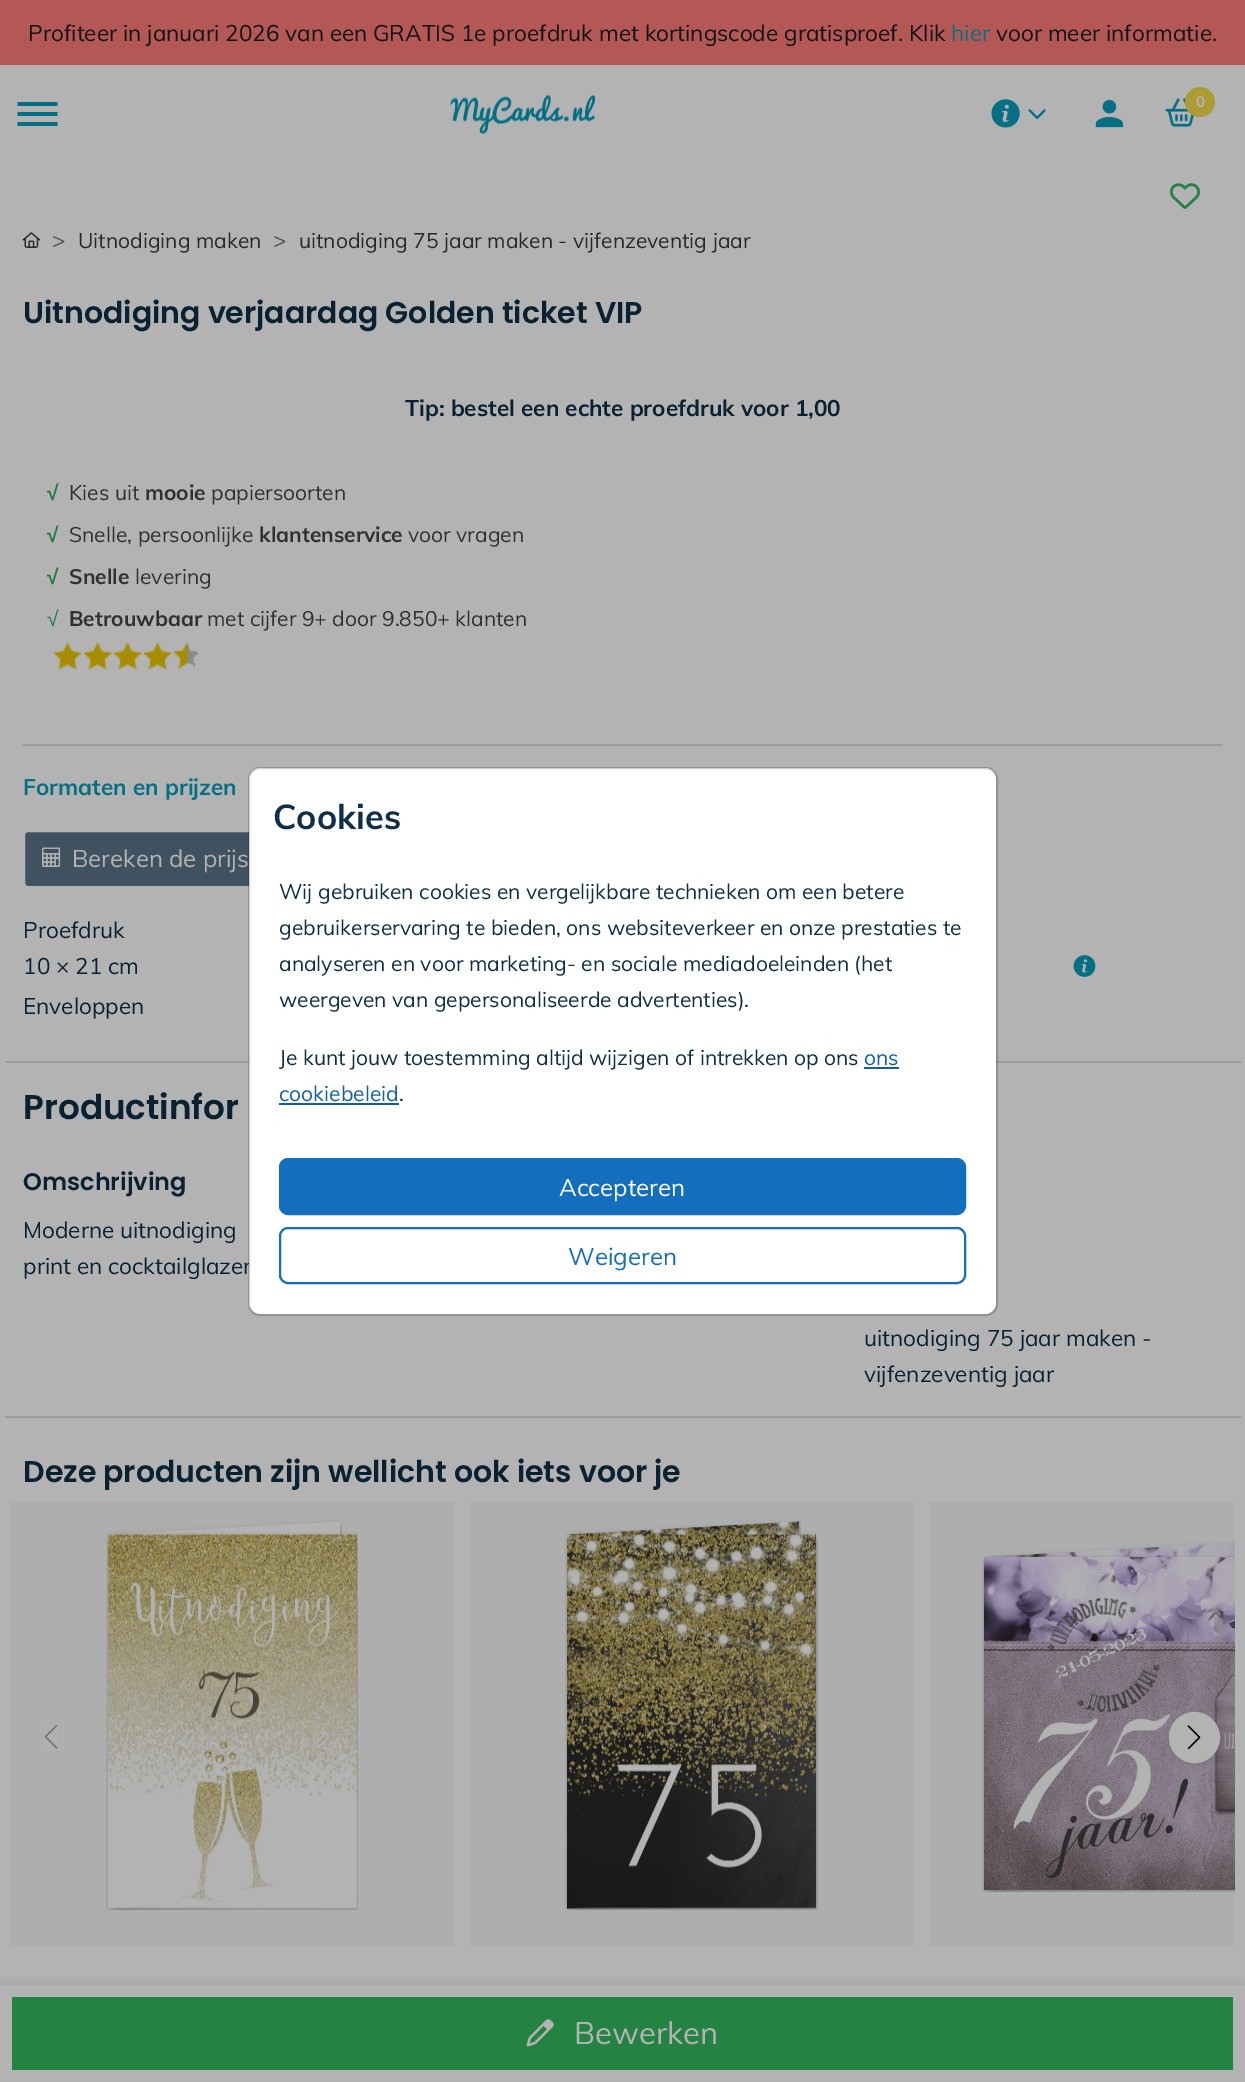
%!PS
<< /PageSize [1245 2082] /PageUsesTransparency true >> setpagedevice
/rgb { dup -16 bitshift 255 div exch dup -8 bitshift 255 and 255 div exch 255 and 255 div setrgbcolor } def
/font { [ exch dup neg 0 0 3 -1 roll 0 0 ] selectfont } def
/text { moveto show } def
/alpha { dup .setfillconstantalpha .setstrokeconstantalpha } def
/circle { newpath 0 360 arc closepath } def
/roundrect { 5 dict begin { /r /h /w /y /x } { exch def } forall
  x r add y moveto x w add y 2 copy h add r arct x w add y h add x 1 index r arct
  x y h add x y r arct x y 2 copy exch w add exch r arct closepath end } def
/shadow { 12 dict begin { /a /b /q /h /w /y /x } { exch def } forall gsave /was 0 def
  9 -2 -9 { dup b mul 4 div /e exch def 1 sub .425 mul 2.718 exch exp 1 add a .99 .min exch div /now exch def
    1 1 now sub 1 was sub div sub alpha /was now def
    w h .min e 2 mul add 0 gt { x e sub y e sub w e 2 mul add h e 2 mul add
      q e add b .6 mul add w h .min 2 div e add .min 0 .max roundrect fill } if } for grestore end } def
/picture { 5 dict begin { /h /w /y /x /name } { exch def } forall
  gsave x y translate w h scale
  w h 8 [w 0 0 h 0 0] name (r) file false 3 colorimage grestore end } def
0 .pushpdf14devicefilter
0 2082 translate 1 -1 scale
4 setmiterlimit
/s1 { /Muli-Regular 22.5 font 16#121212 rgb } def
/s2 { /Muli-Regular 22.5 font 16#056F84 rgb } def
/s3 { /Muli-Bold 15 font 16#B3B3B3 rgb } def
/s4 { /Muli-Regular 22.5 font 16#4C5258 rgb } def
/s5 { /Muli-Regular 21 font 16#24292D rgb } def
/s6 { /Poppins-SemiBold 30 font 16#0A2132 rgb } def
/s7 { /Muli-Bold 22.5 font 16#0A2132 rgb } def
/s8 { /LiberationSans-Bold 21 font 16#1B7A43 rgb } def
/s9 { /Muli-Regular 21 font 16#303030 rgb } def
/s10 { /Muli-Bold 21 font 16#303030 rgb } def
/s11 { /LiberationSans-Regular 21 font 16#1B7A43 rgb } def
/s12 { /Muli-Bold 22.5 font 16#056F84 rgb } def
/s13 { /Muli-Regular 24 font 16#B3B3B3 rgb } def
/s14 { /Muli-Regular 22.5 font 16#0A2132 rgb } def
/s15 { /Poppins-SemiBold 34.25 font 16#0A2132 rgb } def
/s16 { /Poppins-SemiBold 24 font 16#0A2132 rgb } def
/s17 { /Muli-Regular 31 font 16#B3B3B3 rgb } def
/s18 { /Muli-Bold 34.25 font 16#0E2F47 rgb } def
/s19 { /Muli-Regular 21 font 16#0E2F47 rgb } def
/s20 { /Muli-Regular 21 font 16#115EA2 rgb } def
/s21 { /Muli-Regular 24 font 16#FFFFFF rgb } def
/s22 { /Muli-Regular 24 font 16#146EBE rgb } def
16#B3B3B3 rgb
0 0 1245 2082 rectfill
16#B35855 rgb
0 0 1245 65 rectfill
s1
(Profiteer in januari 2026 van een GRATIS 1e proefdruk met kortingscode gratisproef. Klik) 28 41 text
s2
(hier) 951 41 text
s1
(voor meer informatie.) 996 41 text
16#066F84 rgb
17.5 102 moveto 57.5 102 lineto 57.5 106 lineto 17.5 106 lineto closepath 17.5 112 moveto 57.5 112 lineto 57.5 116 lineto 17.5 116 lineto closepath 17.5 122 moveto 57.5 122 lineto 57.5 126 lineto 17.5 126 lineto closepath fill
(pic1.raw) 450 94 146 40 picture
(pic2.raw) 991 99 29 29 picture
(pic3.raw) 1028 109 18 11 picture
(pic4.raw) 1095 99 29 29 picture
(pic5.raw) 1165 98 29 29 picture
16#AD9B36 rgb
1200 102 15 circle fill
s3
(0) 1196 107 text
(pic6.raw) 1170 183 30 26 picture
(pic7.raw) 22 232 19 16 picture
s4
(>) 52 248 text
s5
(Uitnodiging maken) 78 248 text
s4
(>) 273 248 text
s5
(uitnodiging 75 jaar maken - vijfenzeventig jaar) 299 248 text
s6
(Uitnodiging verjaardag Golden ticket VIP) 23 323 text
s7
(Tip: bestel een echte proefdruk voor 1,00) 405 416 text
s8
(√) 47 500 text
s9
(Kies uit) 69 500 text
s10
(mooie) 145 500 text
s9
(papiersoorten) 211 500 text
s8
(√) 47 542 text
s9
(Snelle, persoonlijke) 69 542 text
s10
(klantenservice) 259 542 text
s9
(voor vragen) 408 542 text
s8
(√) 47 584 text
s10
(Snelle) 69 584 text
s9
(levering) 135 584 text
s11
(√) 47 626 text
s10
(Betrouwbaar) 69 626 text
s9
(met cijfer 9+ door 9.850+ klanten) 207 626 text
(pic8.raw) 52 641 147 29 picture
16#9B9EA1 rgb
23 744 1200 2 rectfill
s12
(Formaten en prijzen) 23 795 text
16#40525F rgb
24 831 514 56 4 roundrect gsave fill grestore
16#B3B3B3 rgb
2 setlinewidth
stroke
(pic9.raw) 42 847 19 20 picture
s13
(Bereken de prijs) 72 867 text
s14
(Proefdruk) 23 938 text
(10 × 21 cm) 23 974 text
(pic10.raw) 1073 955 23 22 picture
(Enveloppen) 23 1014 text
16#9B9EA1 rgb
5 1061 1236 2 rectfill
5 1416 1236 2 rectfill
s15
(Productinfor) 23 1119 text
s16
(Omschrijving) 23 1190 text
s14
(Moderne uitnodiging) 23 1238 text
(print en cocktailglazen) 23 1274 text
(uitnodiging 75 jaar maken -) 864 1346 text
(vijfenzeventig jaar) 864 1382 text
s6
(Deze producten zijn wellicht ook iets voor je) 23 1482 text
16#AEAEAF rgb
11 1502 444 444 rectfill
(pic11.raw) 106 1520 236 390 picture
(pic12.raw) 106 1532 252 378 picture
470 1502 444 444 rectfill
(pic13.raw) 565 1520 236 390 picture
(pic14.raw) 565 1532 253 378 picture
929 1502 8 444 rectfill
937 1502 moveto 1235 1502 lineto 1235 1946 lineto 937 1946 lineto 932.5 1946 929 1942.5 929 1938 curveto 929 1510 lineto 929 1505.5 932.5 1502 937 1502 curveto closepath fill
(pic15.raw) 982 1541 253 351 picture
(pic16.raw) 982 1555 253 337 picture
(pic17.raw) 44 1725 14 24 picture
16#000000 rgb
1169 1715 51 51 25.5 3 0.07 shadow
16#B3B3B3 rgb
1194.5 1737.5 18.5 circle gsave fill grestore
14 setlinewidth
stroke
(pic18.raw) 1187 1725 14 24 picture
16#121212 rgb
0 1982 1245 97 0 3 0.07 shadow
16#B3B3B3 rgb
0 1985 1245 96 rectfill
16#248243 rgb
12 1997 1221 73 rectfill
(pic19.raw) 526 2019 28 28 picture
s17
(Bewerken) 574 2044 text
16#FFFFFF rgb
249 768 747 546 11 roundrect fill
0.18 alpha
16#000000 rgb
2 setlinewidth
249 768 748 547 11 roundrect stroke
1 alpha
s18
(Cookies) 273 829 text
s19
(Wij gebruiken cookies en vergelijkbare technieken om een betere) 279 899 text
(gebruikerservaring te bieden, ons websiteverkeer en onze prestaties te) 279 935 text
(analyseren en voor marketing- en sociale mediadoeleinden \(het) 279 971 text
(weergeven van gepersonaliseerde advertenties\).) 279 1007 text
(Je kunt jouw toestemming altijd wijzigen of intrekken op ons) 279 1065 text
s20
(ons) 864 1065 text
864 1067 35 2 rectfill
(cookiebeleid) 279 1101 text
279 1103 120 2 rectfill
s19
(.) 399 1101 text
16#146EBE rgb
280 1159 685 55 8 roundrect gsave fill grestore
stroke
s21
(Accepteren) 559 1196 text
16#146EBE rgb
280 1228 685 55 8 roundrect stroke
(Weigeren) 568 1265 text
.poppdf14devicefilter showpage
